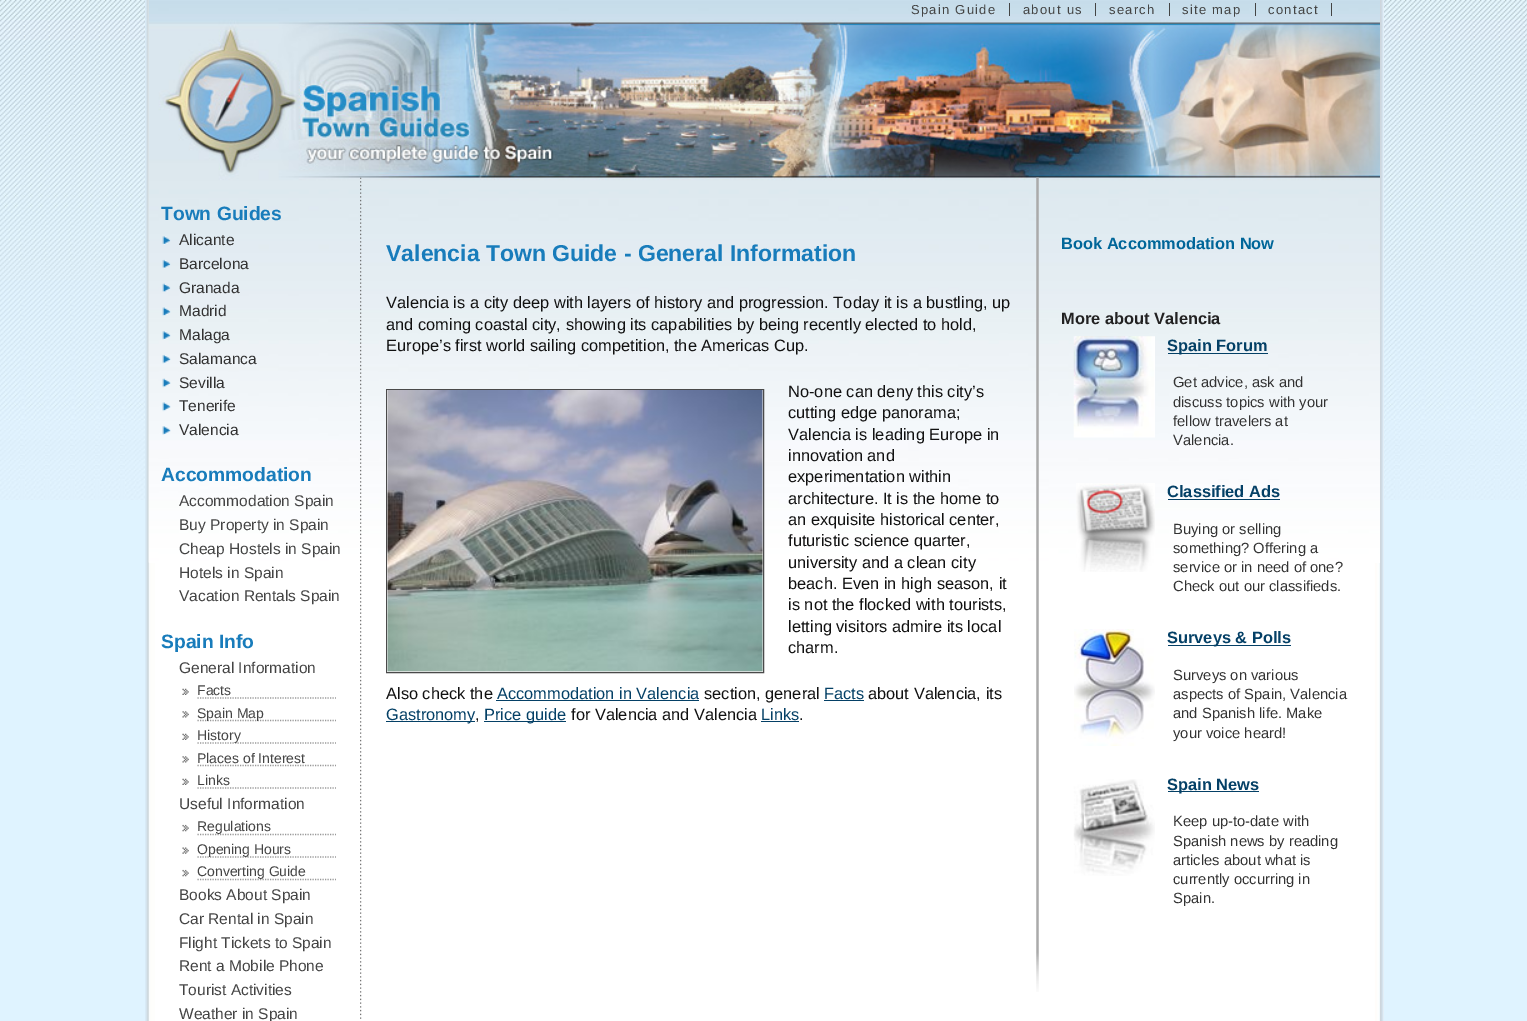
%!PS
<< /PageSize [1527 1021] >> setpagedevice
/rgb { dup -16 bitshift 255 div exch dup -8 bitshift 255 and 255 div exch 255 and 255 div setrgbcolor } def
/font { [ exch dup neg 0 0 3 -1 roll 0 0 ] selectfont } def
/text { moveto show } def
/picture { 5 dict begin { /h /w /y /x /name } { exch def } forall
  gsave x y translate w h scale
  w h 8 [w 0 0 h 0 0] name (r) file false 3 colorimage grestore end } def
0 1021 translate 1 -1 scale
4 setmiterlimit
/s1 { /LiberationSans-Bold 19.25 font 16#187CBB rgb } def
/s2 { /LiberationSans-Regular 15.5 font 16#333333 rgb } def
/s3 { /LiberationSans-Regular 15.5 font 16#444444 rgb } def
/s4 { /LiberationSans-Regular 14 font 16#444444 rgb } def
/s5 { /LiberationSans-Bold 23 font 16#187CBB rgb } def
/s6 { /LiberationSans-Regular 16.4 font 16#111111 rgb } def
/s7 { /LiberationSans-Regular 16.4 font 16#044066 rgb } def
/s8 { /LiberationSans-Bold 16.4 font 16#006699 rgb } def
/s9 { /LiberationSans-Bold 16.4 font 16#222222 rgb } def
/s10 { /LiberationSans-Bold 16.4 font 16#044066 rgb } def
/s11 { /LiberationSans-Regular 14.75 font 16#333333 rgb } def
16#DFF3FF rgb
0 0 1527 1021 rectfill
(pic1.raw) 0 0 1527 500 picture
(pic2.raw) 145 0 1239 1021 picture
16#FFFFFF rgb
149 562 1231 1 rectfill
(pic3.raw) 148 0 1232 563 picture
16#444444 rgb
1009 3 1 13 rectfill
/LiberationSans-Regular 13 font
911 14 moveto 1.25 0 (Spain Guide) ashow
1095 3 1 13 rectfill
1023 14 moveto 1.25 0 (about us) ashow
1169 3 1 13 rectfill
1109 14 moveto 1.25 0 (search) ashow
1255 3 1 13 rectfill
1182 14 moveto 1.25 0 (site map) ashow
1331 3 1 13 rectfill
1268 14 moveto 1.25 0 (contact) ashow
(pic4.raw) 360 177 2 842 picture
s1
(Town Guides) 161 220 text
(pic5.raw) 162 236 9 9 picture
s2
(Alicante) 179 245 text
(pic6.raw) 162 259 9 10 picture
(Barcelona) 179 269 text
(pic7.raw) 162 283 9 9 picture
(Granada) 179 293 text
(pic8.raw) 162 307 9 9 picture
(Madrid) 179 316 text
(pic9.raw) 162 331 9 9 picture
(Malaga) 179 340 text
(pic10.raw) 162 354 9 10 picture
(Salamanca) 179 364 text
(pic11.raw) 162 378 9 10 picture
(Sevilla) 179 388 text
(pic12.raw) 162 402 9 10 picture
(Tenerife) 179 411 text
(pic13.raw) 162 426 9 9 picture
(Valencia) 179 435 text
s1
(Accommodation) 161 481 text
s3
(Accommodation Spain) 179 506 text
(Buy Property in Spain) 179 530 text
(Cheap Hostels in Spain) 179 554 text
(Hotels in Spain) 179 578 text
(Vacation Rentals Spain) 179 601 text
s1
(Spain Info) 161 648 text
s3
(General Information) 179 673 text
16#999999 rgb
1.2 setlinewidth
[1.25 1.25] 0 setdash
197.5 698 moveto 336 698 lineto stroke
(pic14.raw) 182 688 7 7 picture
s4
(Facts) 197 695 text
16#999999 rgb
197.5 720.5 moveto 336 720.5 lineto stroke
(pic15.raw) 182 711 7 7 picture
s4
(Spain Map) 197 718 text
16#999999 rgb
197.5 743 moveto 336 743 lineto stroke
(pic14.raw) 182 733 7 7 picture
s4
(History) 197 740 text
16#999999 rgb
197.5 765.5 moveto 336 765.5 lineto stroke
(pic15.raw) 182 756 7 7 picture
s4
(Places of Interest) 197 763 text
16#999999 rgb
197.5 788 moveto 336 788 lineto stroke
(pic16.raw) 182 778 7 7 picture
s4
(Links) 197 785 text
s3
(Useful Information) 179 809 text
16#999999 rgb
197.5 834.5 moveto 336 834.5 lineto stroke
(pic17.raw) 182 824 7 8 picture
s4
(Regulations) 197 831 text
16#999999 rgb
197.5 857 moveto 336 857 lineto stroke
(pic18.raw) 182 847 7 7 picture
s4
(Opening Hours) 197 854 text
16#999999 rgb
197.5 879.5 moveto 336 879.5 lineto stroke
(pic17.raw) 182 869 7 8 picture
s4
(Converting Guide) 197 876 text
s3
(Books About Spain) 179 900 text
(Car Rental in Spain) 179 924 text
(Flight Tickets to Spain) 179 948 text
(Rent a Mobile Phone) 179 971 text
(Tourist Activities) 179 995 text
(Weather in Spain) 179 1019 text
s5
(Valencia Town Guide - General Information) 386 261 text
s6
(Valencia is a city deep with layers of history and progression. Today it is a bustling, up) 386 308 text
(and coming coastal city, showing its capabilities by being recently elected to hold,) 386 330 text
(Europe’s first world sailing competition, the Americas Cup.) 386 351 text
16#EEEEEE rgb
386.5 389.5 moveto 763.5 389.5 lineto 763.5 672.5 lineto 386.5 672.5 lineto closepath gsave fill grestore
16#4A4A4A rgb
1 setlinewidth
[] 0 setdash
stroke
(pic19.raw) 387 390 376 282 picture
s6
(No-one can deny this city’s) 788 397 text
(cutting edge panorama;) 788 418 text
(Valencia is leading Europe in) 788 440 text
(innovation and) 788 461 text
(experimentation within) 788 482 text
(architecture. It is the home to) 788 504 text
(an exquisite historical center,) 788 525 text
(futuristic science quarter,) 788 546 text
(university and a clean city) 788 568 text
(beach. Even in high season, it) 788 589 text
(is not the flocked with tourists,) 788 610 text
(letting visitors admire its local) 788 632 text
(charm.) 788 653 text
(Also check the) 386 699 text
s7
(Accommodation in Valencia) 497 699 text
496 700 203 1 rectfill
s6
(section, general) 704 699 text
s7
(Facts) 824 699 text
824 700 40 1 rectfill
s6
(about Valencia, its) 868 699 text
16#044066 rgb
386 721 89 1 rectfill
(Gastronomy) 386 720 text
s6
(,) 475 720 text
16#044066 rgb
484 721 82 1 rectfill
(Price guide) 484 720 text
s6
(for Valencia and Valencia) 571 720 text
s7
(Links) 761 720 text
761 721 38 1 rectfill
s6
(.) 799 720 text
(pic20.raw) 1036 177 3 815 picture
s8
(Book Accommodation Now) 1061 249 text
s9
(More about Valencia) 1061 324 text
(pic21.raw) 1073 336 82 102 picture
16#044066 rgb
1168 353 100 1 rectfill
(Spain Forum) 1167 351 text
s11
(Get advice, ask and) 1173 387 text
(discuss topics with your) 1173 407 text
(fellow travelers at) 1173 426 text
(Valencia.) 1173 445 text
(pic22.raw) 1076 483 79 89 picture
s10
(Classified Ads) 1167 497 text
1168 499 112 1 rectfill
s11
(Buying or selling) 1173 534 text
(something? Offering a) 1173 553 text
(service or in need of one?) 1173 572 text
(Check out our classifieds.) 1173 591 text
(pic23.raw) 1074 629 81 117 picture
16#044066 rgb
1168 645 123 1 rectfill
s10
(Surveys & Polls) 1167 643 text
s11
(Surveys on various) 1173 680 text
(aspects of Spain, Valencia) 1173 699 text
(and Spanish life. Make) 1173 718 text
(your voice heard!) 1173 738 text
(pic24.raw) 1073 779 82 97 picture
16#044066 rgb
1168 791 91 1 rectfill
s10
(Spain News) 1167 790 text
s11
(Keep up-to-date with) 1173 826 text
(Spanish news by reading) 1173 846 text
(articles about what is) 1173 865 text
(currently occurring in) 1173 884 text
(Spain.) 1173 903 text
showpage
